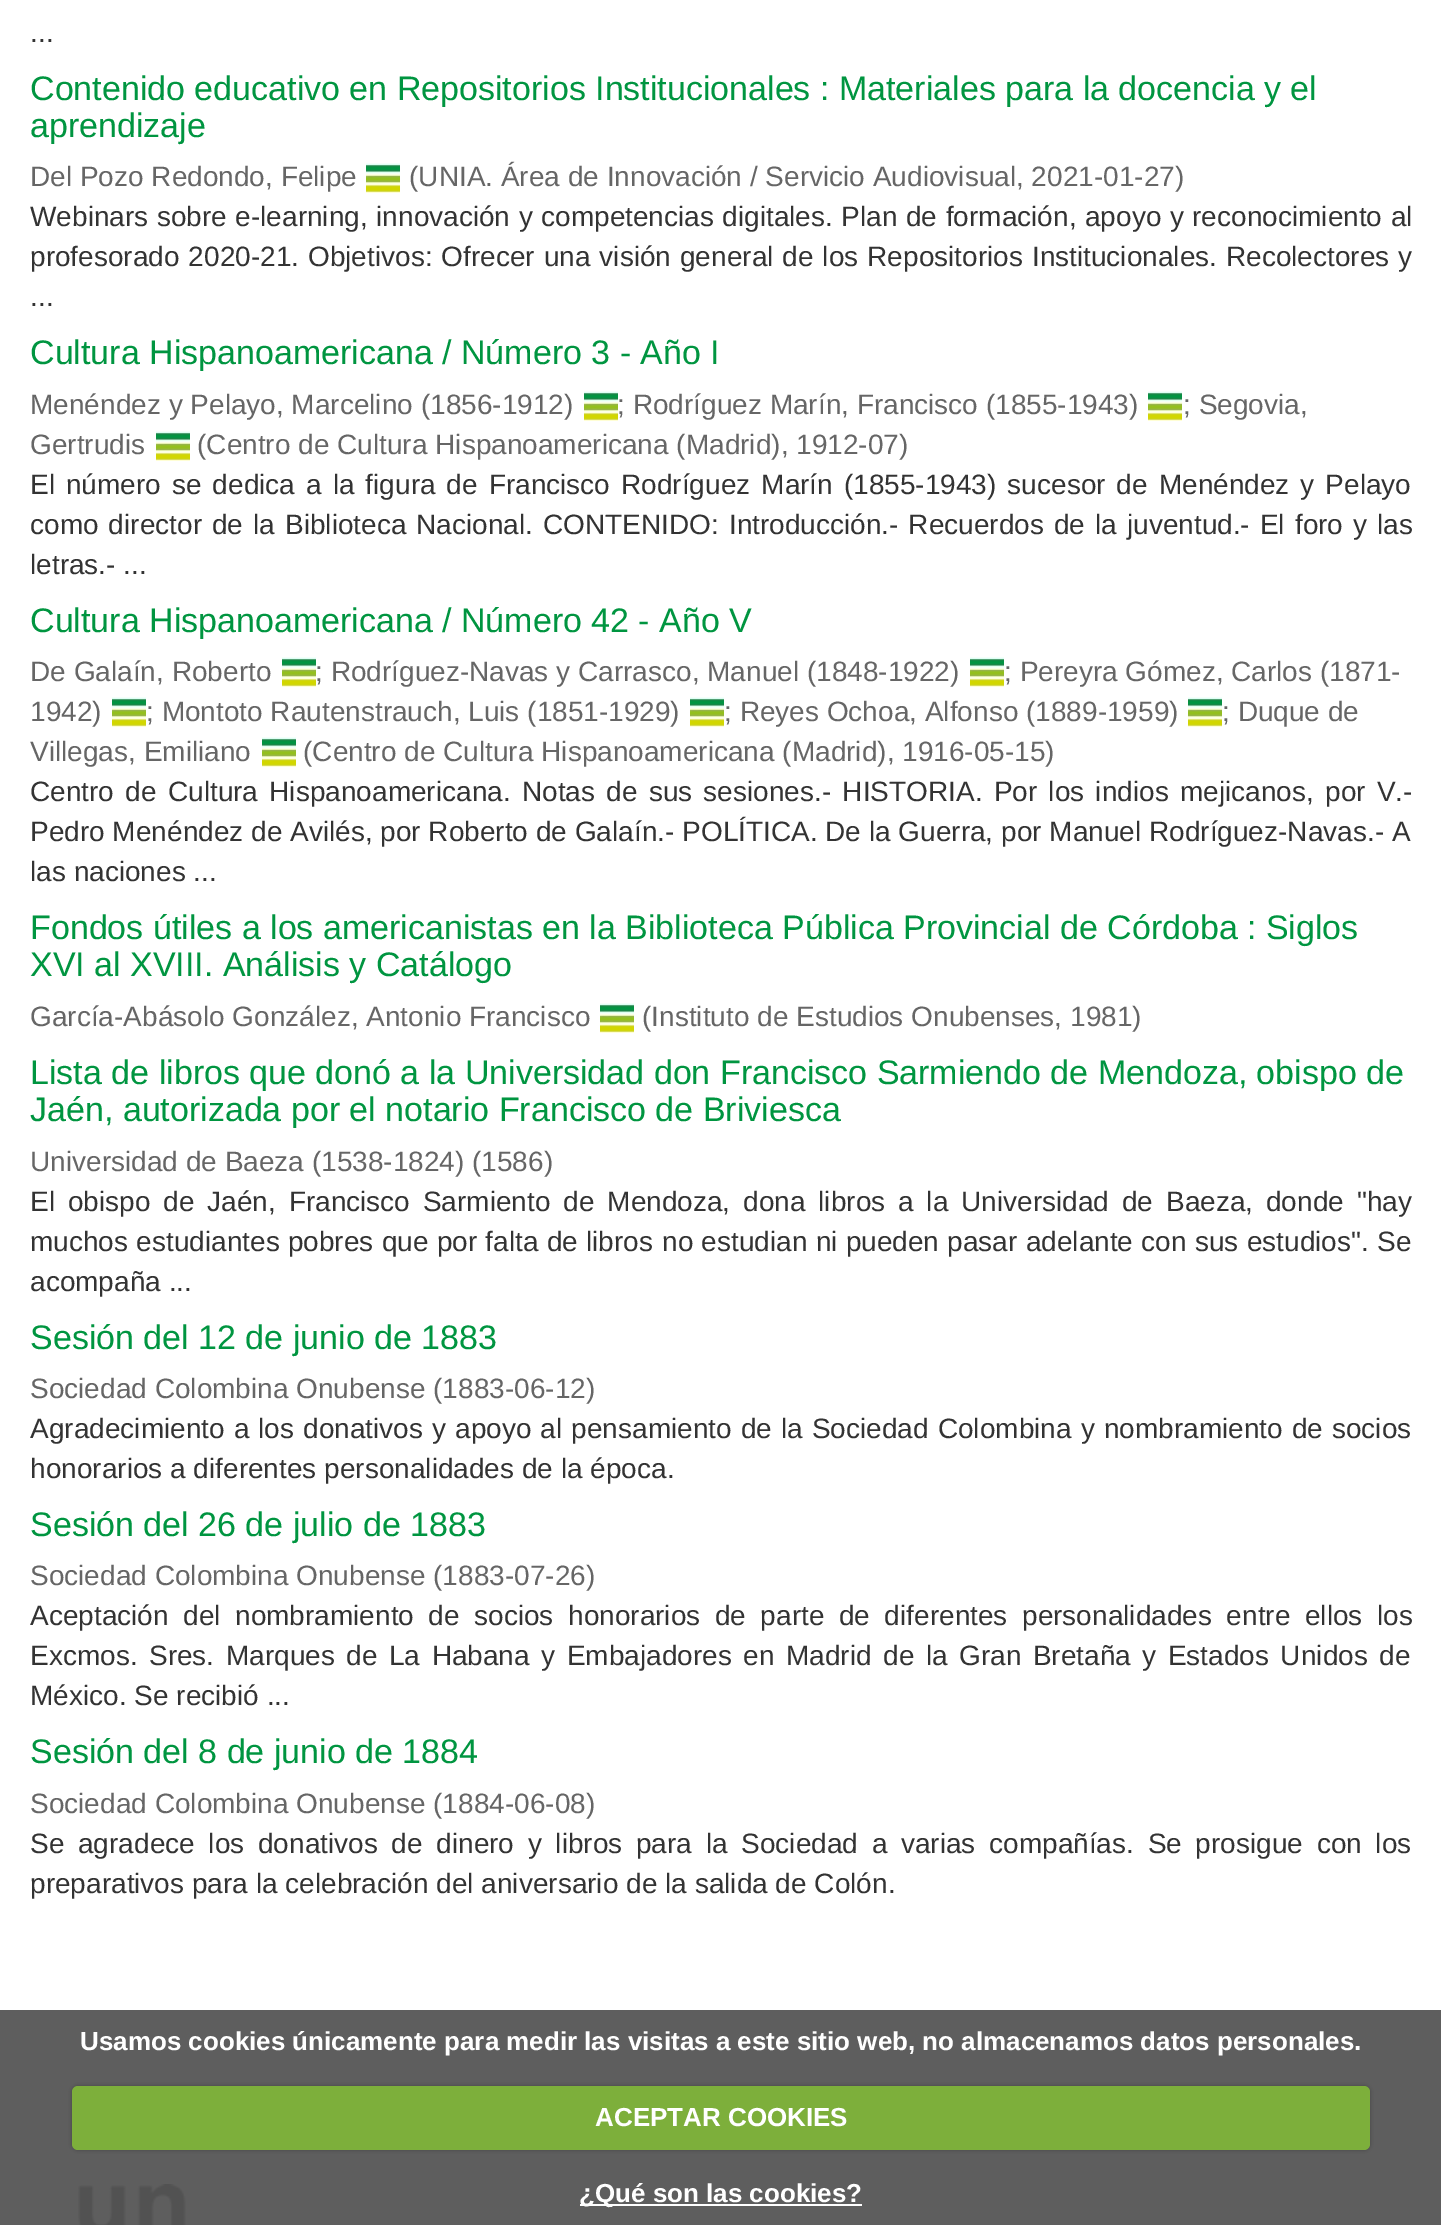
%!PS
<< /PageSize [1441 2225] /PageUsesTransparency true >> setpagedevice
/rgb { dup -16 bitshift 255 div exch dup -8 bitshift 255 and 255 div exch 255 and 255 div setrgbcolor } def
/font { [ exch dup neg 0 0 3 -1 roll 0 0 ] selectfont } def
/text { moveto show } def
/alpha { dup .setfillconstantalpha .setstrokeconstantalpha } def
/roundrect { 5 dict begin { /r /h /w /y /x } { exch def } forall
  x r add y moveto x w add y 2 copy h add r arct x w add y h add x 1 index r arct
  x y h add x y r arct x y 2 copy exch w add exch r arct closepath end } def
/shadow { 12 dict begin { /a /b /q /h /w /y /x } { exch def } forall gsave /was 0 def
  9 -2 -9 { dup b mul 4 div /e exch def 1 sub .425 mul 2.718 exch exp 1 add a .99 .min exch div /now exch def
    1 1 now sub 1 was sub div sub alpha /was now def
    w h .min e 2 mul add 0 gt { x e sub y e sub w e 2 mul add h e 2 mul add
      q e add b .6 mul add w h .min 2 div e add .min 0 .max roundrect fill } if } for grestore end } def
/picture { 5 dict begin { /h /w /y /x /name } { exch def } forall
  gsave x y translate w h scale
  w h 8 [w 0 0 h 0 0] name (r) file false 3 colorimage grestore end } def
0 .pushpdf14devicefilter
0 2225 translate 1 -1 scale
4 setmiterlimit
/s1 { /LiberationSans-Regular 28 font 16#333333 rgb } def
/s2 { /LiberationSans-Regular 34 font 16#009540 rgb } def
/s3 { /LiberationSans-Regular 28 font 16#666666 rgb } def
/s4 { /LiberationSans-Bold 26 font 16#FFFFFF rgb } def
16#FFFFFF rgb
0 0 1441 2225 rectfill
16#5E5E5E rgb
0 2010 1441 215 rectfill
s1
(...) 30 42 text
s2
(Contenido educativo en Repositorios Institucionales : Materiales para la docencia y el) 30 100 text
(aprendizaje) 30 137 text
s3
(Del Pozo Redondo, Felipe) 30 186 text
(pic1.raw) 366 163 34 30 picture
(\(UNIA. Área de Innovación / Servicio Audiovisual, 2021-01-27\)) 409 186 text
16#333333 rgb
30 226 moveto 0.75 0 32 (Webinars sobre e-learning, innovación y competencias digitales. Plan de formación, apoyo y reconocimiento al) widthshow
30 266 moveto 1.2 0 32 (profesorado 2020-21. Objetivos: Ofrecer una visión general de los Repositorios Institucionales. Recolectores y) widthshow
(...) 30 306 text
s2
(Cultura Hispanoamericana / Número 3 - Año I) 30 364 text
s3
(Menéndez y Pelayo, Marcelino \(1856-1912\)) 30 414 text
(pic1.raw) 584 391 34 30 picture
(; Rodríguez Marín, Francisco \(1855-1943\)) 617 414 text
(pic2.raw) 1148 391 34 30 picture
(; Segovia,) 1183 414 text
(Gertrudis) 30 454 text
(pic1.raw) 156 431 34 30 picture
(\(Centro de Cultura Hispanoamericana \(Madrid\), 1912-07\)) 197 454 text
16#333333 rgb
30 494 moveto 3.25 0 32 (El número se dedica a la figura de Francisco Rodríguez Marín \(1855-1943\) sucesor de Menéndez y Pelayo) widthshow
30 534 moveto 2.25 0 32 (como director de la Biblioteca Nacional.) widthshow
543 534 moveto 2.25 0 32 (CONTENIDO: Introducción.- Recuerdos de la juventud.- El foro y las) widthshow
(letras.- ...) 30 574 text
s2
(Cultura Hispanoamericana / Número 42 - Año V) 30 632 text
s3
(De Galaín, Roberto) 30 681 text
(pic2.raw) 282 657 34 30 picture
(; Rodríguez-Navas y Carrasco, Manuel \(1848-1922\)) 315 681 text
(pic2.raw) 970 657 34 30 picture
(; Pereyra Gómez, Carlos \(1871-) 1004 681 text
(1942\)) 30 721 text
(pic3.raw) 112 697 34 30 picture
(; Montoto Rautenstrauch, Luis \(1851-1929\)) 146 721 text
(pic3.raw) 690 697 34 30 picture
(; Reyes Ochoa, Alfonso \(1889-1959\)) 724 721 text
(pic3.raw) 1188 697 34 30 picture
(; Duque de) 1222 721 text
(Villegas, Emiliano) 30 761 text
(pic1.raw) 262 737 34 30 picture
(\(Centro de Cultura Hispanoamericana \(Madrid\), 1916-05-15\)) 303 761 text
16#333333 rgb
30 801 moveto 3.5 0 32 (Centro de Cultura Hispanoamericana. Notas de sus sesiones.- HISTORIA. Por los indios mejicanos, por V.-) widthshow
(Pedro Menéndez de Avilés, por Roberto de Galaín.- POLÍTICA. De la Guerra, por Manuel Rodríguez-Navas.- A) 30 841 text
(las naciones ...) 30 881 text
s2
(Fondos útiles a los americanistas en la Biblioteca Pública Provincial de Córdoba : Siglos) 30 939 text
(XVI al XVIII. Análisis y Catálogo) 30 976 text
s3
(García-Abásolo González, Antonio Francisco) 30 1026 text
(pic1.raw) 600 1003 34 30 picture
(\(Instituto de Estudios Onubenses, 1981\)) 642 1026 text
s2
(Lista de libros que donó a la Universidad don Francisco Sarmiendo de Mendoza, obispo de) 30 1084 text
(Jaén, autorizada por el notario Francisco de Briviesca) 30 1121 text
s3
(Universidad de Baeza \(1538-1824\) \(1586\)) 30 1171 text
16#333333 rgb
30 1211 moveto 5.1 0 32 (El obispo de Jaén, Francisco Sarmiento de Mendoza, dona libros a la Universidad de Baeza, donde "hay) widthshow
30 1251 moveto 0.5 0 32 (muchos estudiantes pobres que por falta de libros) widthshow
662 1251 moveto 0.5 0 32 (no estudian ni pueden pasar adelante con sus estudios". Se) widthshow
(acompaña ...) 30 1291 text
s2
(Sesión del 12 de junio de 1883) 30 1349 text
s3
(Sociedad Colombina Onubense \(1883-06-12\)) 30 1398 text
16#333333 rgb
30 1438 moveto 1.3 0 32 (Agradecimiento a los donativos y apoyo al pensamiento de la Sociedad Colombina y nombramiento de socios) widthshow
(honorarios a diferentes personalidades de la época.) 30 1478 text
s2
(Sesión del 26 de julio de 1883) 30 1536 text
s3
(Sociedad Colombina Onubense \(1883-07-26\)) 30 1585 text
16#333333 rgb
30 1625 moveto 6.75 0 32 (Aceptación del nombramiento de socios honorarios de parte de diferentes personalidades entre ellos los) widthshow
30 1665 moveto 3.75 0 32 (Excmos. Sres. Marques de La Habana y Embajadores en Madrid de la Gran Bretaña y Estados Unidos de) widthshow
(México. Se recibió ...) 30 1705 text
s2
(Sesión del 8 de junio de 1884) 30 1763 text
s3
(Sociedad Colombina Onubense \(1884-06-08\)) 30 1813 text
16#333333 rgb
30 1853 moveto 5.9 0 32 (Se agradece los donativos de dinero y libros para la Sociedad a varias compañías. Se prosigue con los) widthshow
(preparativos para la celebración del aniversario de la salida de Colón.) 30 1893 text
s4
(Usamos cookies únicamente para medir las visitas a este sitio web, no almacenamos datos personales.) 80 2050 text
16#000000 rgb
72 2086 1298 64 6 2 0.25 shadow
16#7DAF3B rgb
72 2086 1298 64 6 roundrect fill
s4
(ACEPTAR COOKIES) 595 2126 text
580 2204 282 2 rectfill
(¿Qué son las cookies?) 579 2202 text
(pic4.raw) 77 2184 109 41 picture
.poppdf14devicefilter showpage
